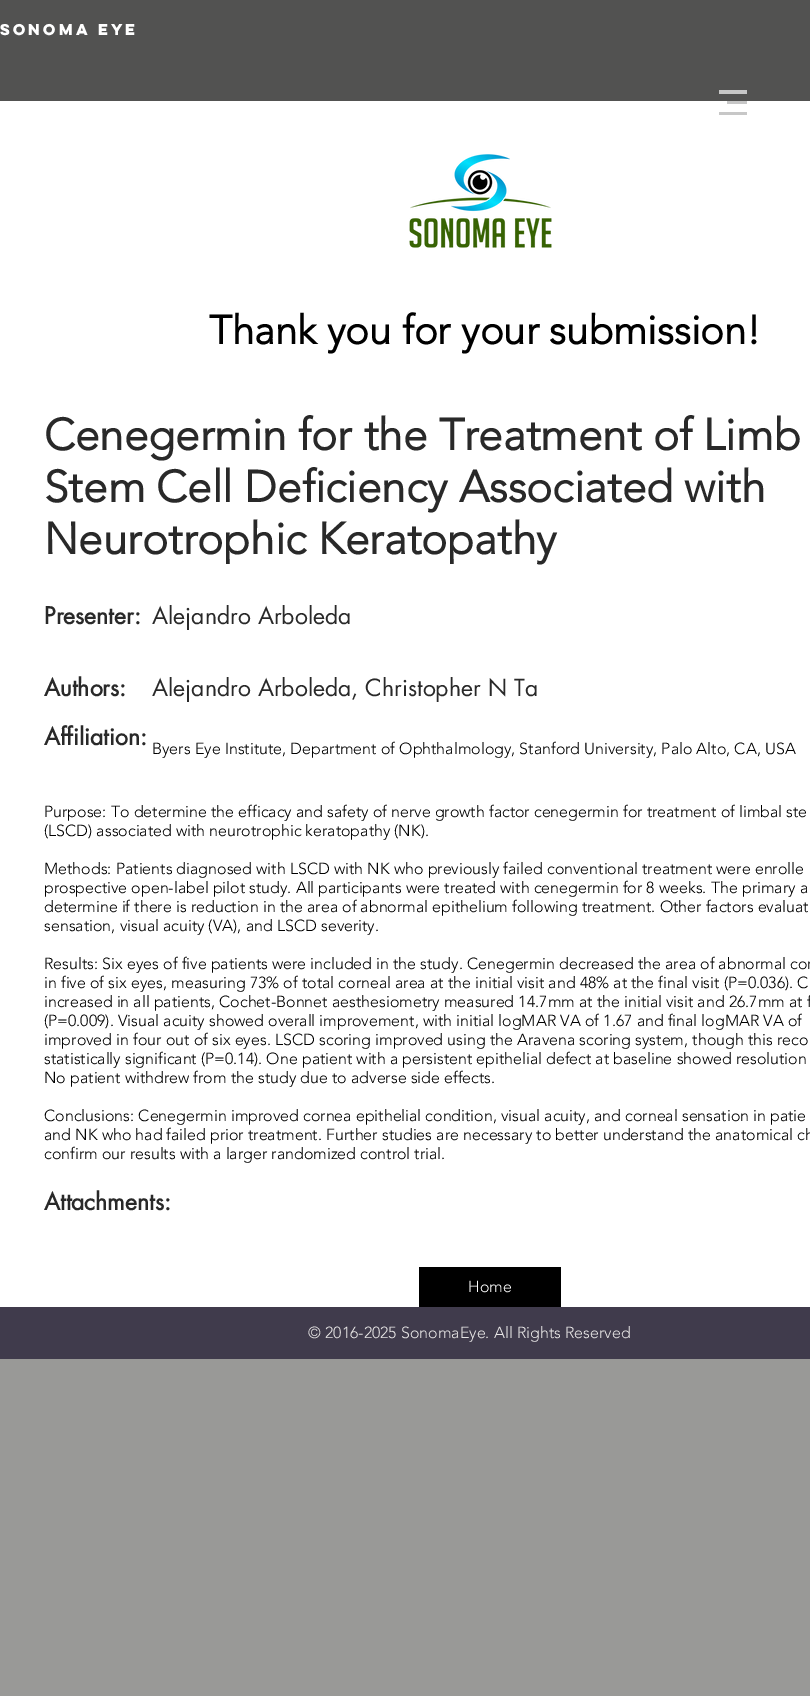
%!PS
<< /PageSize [810 1696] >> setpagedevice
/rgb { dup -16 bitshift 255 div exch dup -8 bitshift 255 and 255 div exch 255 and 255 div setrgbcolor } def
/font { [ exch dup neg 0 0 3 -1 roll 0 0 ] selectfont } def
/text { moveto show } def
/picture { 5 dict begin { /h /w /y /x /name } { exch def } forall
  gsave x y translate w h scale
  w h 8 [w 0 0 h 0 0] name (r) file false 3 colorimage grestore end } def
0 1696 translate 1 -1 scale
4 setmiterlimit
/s1 { /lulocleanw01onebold-Bold 14 font 16#FFFFFF rgb } def
/s2 { /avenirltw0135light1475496-Bold 40 font 16#000000 rgb } def
/s3 { /avenirltw0135light1475496-Bold 44 font 16#292929 rgb } def
/s4 { /futura-Bold 23 font 16#292929 rgb } def
/s5 { /futura-Regular 23 font 16#292929 rgb } def
/s6 { /avenirltw0135light1475496-Light 16 font 16#000000 rgb } def
/s7 { /avenirltw0135light1475496-Light 16 font 16#FFFFFF rgb } def
/s8 { /avenirltw0135light1475496-Light 16 font 16#E8E6E6 rgb } def
16#999997 rgb
0 0 810 1696 rectfill
16#525251 rgb
0 0 810 101 rectfill
s1
(SONOMA EYE) 0 35 text
16#C7C7C7 rgb
719 90 28 4 rectfill
16#FFFFFF rgb
0 101 810 1206 rectfill
16#C7C7C7 rgb
727 101 20 3 rectfill
719 112 28 3 rectfill
(pic1.raw) 409 154 143 94 picture
s2
(Thank you for your submission!) 209 344 text
s3
(Cenegermin for the Treatment of Limb) 44 450 text
(Stem Cell Deficiency Associated with) 44 502 text
(Neurotrophic Keratopathy) 44 554 text
s4
(Presenter:) 44 624 text
s5
(Alejandro Arboleda) 152 624 text
s4
(Authors:) 44 696 text
s5
(Alejandro Arboleda, Christopher N Ta) 152 696 text
s4
(Affiliation:) 44 745 text
s6
(Byers Eye Institute, Department of Ophthalmology, Stanford University, Palo Alto, CA, USA) 152 754 text
(Purpose: To determine the efficacy and safety of nerve growth factor cenegermin for treatment of limbal ste) 44 817 text
(\(LSCD\) associated with neurotrophic keratopathy \(NK\).) 44 836 text
(Methods: Patients diagnosed with LSCD with NK who previously failed conventional treatment were enrolle) 44 874 text
(prospective open-label pilot study. All participants were treated with cenegermin for 8 weeks. The primary a) 44 893 text
(determine if there is reduction in the area of abnormal epithelium following treatment. Other factors evaluat) 44 912 text
(sensation, visual acuity \(VA\), and LSCD severity.) 44 931 text
(Results: Six eyes of five patients were included in the study. Cenegermin decreased the area of abnormal cor) 44 969 text
(in five of six eyes, measuring 73% of total corneal area at the initial visit and 48% at the final visit \(P=0.036\). C) 44 988 text
(increased in all patients, Cochet-Bonnet aesthesiometry measured 14.7mm at the initial visit and 26.7mm at f) 44 1007 text
(\(P=0.009\). Visual acuity showed overall improvement, with initial logMAR VA of 1.67 and final logMAR VA of) 44 1026 text
(improved in four out of six eyes. LSCD scoring improved using the Aravena scoring system, though this reco) 44 1045 text
(statistically significant \(P=0.14\). One patient with a persistent epithelial defect at baseline showed resolution) 44 1064 text
(No patient withdrew from the study due to adverse side effects.) 44 1083 text
(Conclusions: Cenegermin improved cornea epithelial condition, visual acuity, and corneal sensation in patie) 44 1121 text
(and NK who had failed prior treatment. Further studies are necessary to better understand the anatomical ch) 44 1140 text
(confirm our results with a larger randomized control trial.) 44 1159 text
s4
(Attachments:) 44 1210 text
16#000000 rgb
419 1267 142 40 rectfill
s7
(Home) 468 1292 text
16#403B4C rgb
0 1307 810 52 rectfill
s8
(© 2016-2025 SonomaEye. All Rights Reserved) 308 1338 text
showpage
